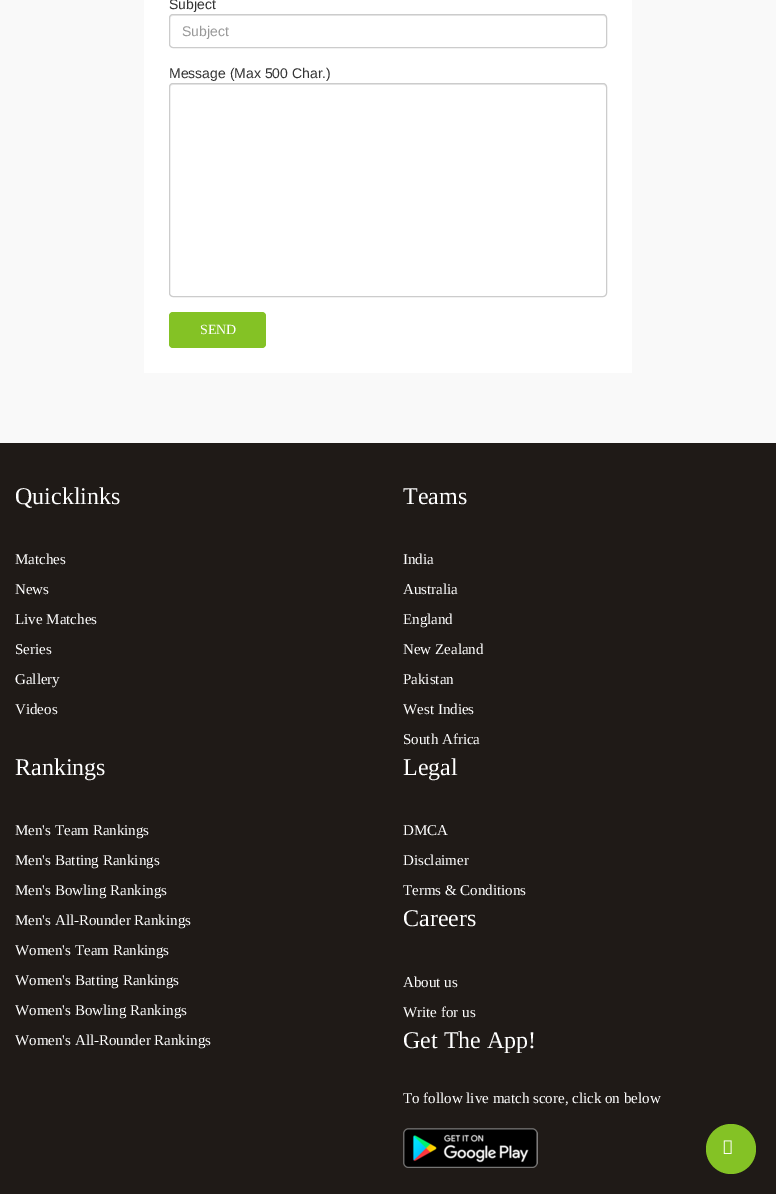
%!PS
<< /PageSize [776 1194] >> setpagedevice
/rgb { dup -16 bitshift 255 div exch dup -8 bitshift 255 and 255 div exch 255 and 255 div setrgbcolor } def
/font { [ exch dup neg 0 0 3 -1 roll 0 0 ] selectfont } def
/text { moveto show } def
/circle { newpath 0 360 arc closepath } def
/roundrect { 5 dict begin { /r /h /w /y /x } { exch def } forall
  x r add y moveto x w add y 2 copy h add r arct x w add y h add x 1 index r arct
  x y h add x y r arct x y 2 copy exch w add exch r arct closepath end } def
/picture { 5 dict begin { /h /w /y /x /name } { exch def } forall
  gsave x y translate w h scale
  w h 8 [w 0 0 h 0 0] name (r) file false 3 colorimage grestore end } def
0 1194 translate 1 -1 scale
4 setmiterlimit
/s1 { /LiberationSans-Regular 14 font 16#333333 rgb } def
/s2 { /LiberationSans-Regular 14 font 16#999999 rgb } def
/s3 { /LiberationSerif-Regular 14 font 16#FFFFFF rgb } def
/s4 { /LiberationSerif-Regular 24 font 16#FFFFFF rgb } def
/s5 { /LiberationSerif-Regular 15 font 16#FFFFFF rgb } def
16#F9F9F9 rgb
0 0 776 1194 rectfill
16#FFFFFF rgb
144 0 488 373 rectfill
s1
(Subject) 169 9 text
16#ECECEC rgb
173 16 moveto 603 16 lineto 605 16 606 17 606 19 curveto 606 17 lineto 604 15 lineto 173 15 lineto 171 15 170 17 170 19 curveto 170 17 171 16 173 16 curveto closepath fill
16#CCCCCC rgb
169.5 14.5 437 33 3.5 roundrect stroke
s2
(Subject) 182 36 text
s1
(Message \(Max 500 Char.\)) 169 78 text
16#ECECEC rgb
173 85 moveto 603 85 lineto 605 85 606 86 606 88 curveto 606 86 605 84 603 84 curveto 172 84 lineto 170 86 lineto 170 88 lineto 170 86 171 85 173 85 curveto closepath fill
16#CCCCCC rgb
169.5 83.5 437 213 3.5 roundrect stroke
16#84C225 rgb
169 312 97 36 4 roundrect fill
s3
(SEND) 200 334 text
16#1F1A17 rgb
0 443 776 751 rectfill
s4
(Quicklinks) 15 504 text
s5
(Matches) 15 564 text
(News) 15 594 text
(Live Matches) 15 624 text
(Series) 15 654 text
(Gallery) 15 684 text
(Videos) 15 714 text
s4
(Teams) 403 504 text
s5
(India) 403 564 text
(Australia) 403 594 text
(England) 403 624 text
(New Zealand) 403 654 text
(Pakistan) 403 684 text
(West Indies) 403 714 text
(South Africa) 403 744 text
s4
(Rankings) 15 775 text
s5
(Men's Team Rankings) 15 835 text
(Men's Batting Rankings) 15 865 text
(Men's Bowling Rankings) 15 895 text
(Men's All-Rounder Rankings) 15 925 text
(Women's Team Rankings) 15 955 text
(Women's Batting Rankings) 15 985 text
(Women's Bowling Rankings) 15 1015 text
(Women's All-Rounder Rankings) 15 1045 text
s4
(Legal) 403 775 text
s5
(DMCA) 403 835 text
(Disclaimer) 403 865 text
(Terms & Conditions) 403 895 text
s4
(Careers) 403 926 text
s5
(About us) 403 987 text
(Write for us) 403 1017 text
s4
(Get The App!) 403 1048 text
s5
(To follow live match score, click on below) 403 1103 text
(pic1.raw) 403 1128 135 40 picture
16#84C225 rgb
731 1149 25 circle fill
(pic2.raw) 723 1140 9 14 picture
showpage
